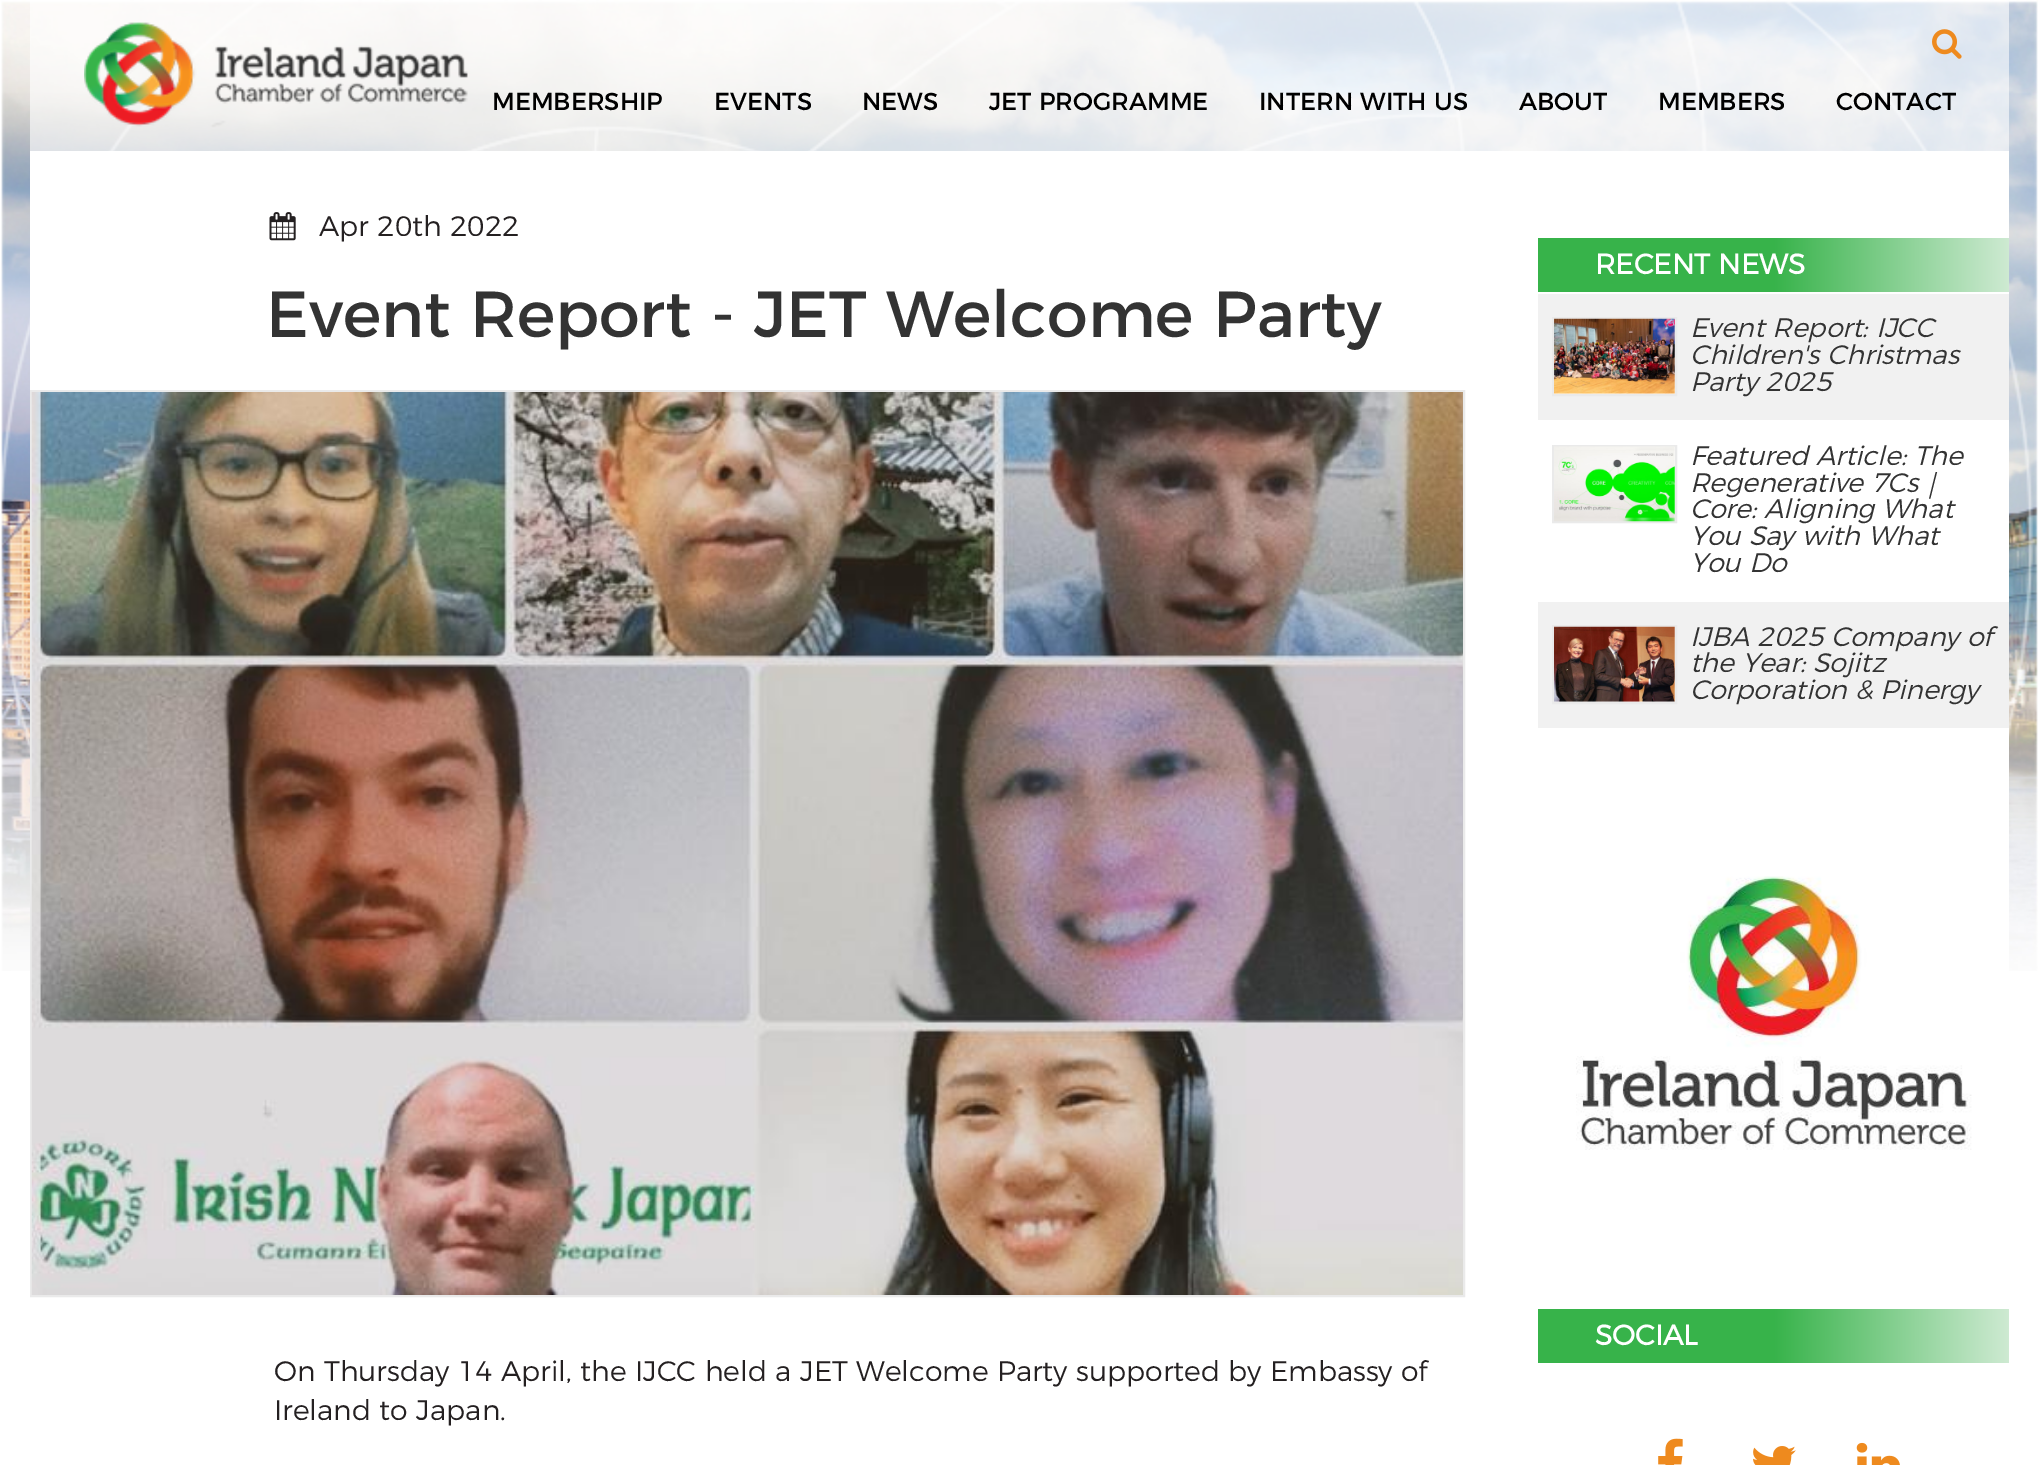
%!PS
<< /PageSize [2038 1465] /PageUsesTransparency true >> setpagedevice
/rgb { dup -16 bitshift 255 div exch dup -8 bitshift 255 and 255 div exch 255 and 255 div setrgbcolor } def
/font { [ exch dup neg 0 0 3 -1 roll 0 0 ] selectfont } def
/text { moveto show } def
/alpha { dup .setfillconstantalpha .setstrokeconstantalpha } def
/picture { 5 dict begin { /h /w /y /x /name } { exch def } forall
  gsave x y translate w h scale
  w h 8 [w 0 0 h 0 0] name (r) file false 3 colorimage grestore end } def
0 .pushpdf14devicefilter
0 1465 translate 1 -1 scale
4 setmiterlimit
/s1 { /Montserrat-Regular 24.5 font 16#000000 rgb } def
/s2 { /Montserrat-Light 28.2 font 16#242021 rgb } def
/s3 { /Montserrat-Regular 64.9 font 16#333333 rgb } def
/s4 { /Montserrat-Bold 28.2 font 16#FFFFFF rgb } def
/s5 { /Montserrat-LightItalic 26.75 font 16#333333 rgb } def
/s6 { /WenQuanYiZenHei-MediumItalic 26.75 font 16#333333 rgb } def
16#FFFFFF rgb
0 0 2038 1465 rectfill
(pic1.raw) 1 0 2037 971 picture
0.6 alpha
30 1 1979 150 rectfill
1 alpha
(pic2.raw) 84 22 384 105 picture
(pic3.raw) 1932 29 30 30 picture
s1
(MEMBERSHIP) 492 110 text
(EVENTS) 714 110 text
(NEWS) 862 110 text
(JET PROGRAMME) 989 110 text
(INTERN WITH US) 1259 110 text
(ABOUT) 1519 110 text
(MEMBERS) 1658 110 text
(CONTACT) 1836 110 text
16#FFFFFF rgb
30 151 1979 820 rectfill
(pic4.raw) 269 212 27 29 picture
s2
(Apr 20th 2022) 319 236 text
s3
(Event Report - JET Welcome Party) 266 337 text
16#EAEAEA rgb
2 setlinewidth
31 391 1433 905 rectstroke
(pic5.raw) 31 392 1432 903 picture
s2
(On Thursday 14 April, the IJCC held a JET Welcome Party supported by Embassy of) 274 1381 text
(Ireland to Japan.) 274 1420 text
gsave 1538 238 moveto 2009 238 lineto 2009 292 lineto 1538 292 lineto closepath clip newpath
<< /ShadingType 2 /ColorSpace /DeviceRGB /Coords [1538 265 2009 265] /Extend [true true] /Function << /FunctionType 3 /Domain [0 1] /Functions [<< /FunctionType 2 /Domain [0 1] /C0 [0.216 0.702 0.29] /C1 [0.216 0.702 0.29] /N 1 >> << /FunctionType 2 /Domain [0 1] /C0 [0.216 0.702 0.29] /C1 [0.808 0.918 0.824] /N 1 >>] /Bounds [0.5] /Encode [0 1 0 1] >> >> shfill grestore
s4
(RECENT NEWS) 1595 274 text
16#F1F1F1 rgb
1538 294 471 126 rectfill
16#FFFFFF rgb
1553 318 moveto 1676 318 lineto 1676 395 lineto 1553 395 lineto closepath gsave fill grestore
16#EAEAEA rgb
stroke
(pic6.raw) 1554 318 121 76 picture
s5
(Event Report: IJCC) 1690 337 text
(Children's Christmas) 1690 364 text
(Party 2025) 1690 391 text
16#EAEAEA rgb
1553 446 123 76 rectstroke
(pic7.raw) 1554 446 121 76 picture
s5
(Featured Article: The) 1690 465 text
(Regenerative 7Cs) 1690 492 text
s6
(｜) 1918 492 text
s5
(Core: Aligning What) 1690 518 text
(You Say with What) 1690 545 text
(You Do) 1690 572 text
16#F1F1F1 rgb
1538 602 471 126 rectfill
16#FFFFFF rgb
1553 626 moveto 1676 626 lineto 1676 703 lineto 1553 703 lineto closepath gsave fill grestore
16#EAEAEA rgb
stroke
(pic8.raw) 1554 626 121 76 picture
s5
(IJBA 2025 Company of) 1690 646 text
(the Year: Sojitz) 1690 672 text
(Corporation & Pinergy) 1690 699 text
(pic9.raw) 1576 876 396 274 picture
gsave 1538 1309 moveto 2009 1309 lineto 2009 1363 lineto 1538 1363 lineto closepath clip newpath
<< /ShadingType 2 /ColorSpace /DeviceRGB /Coords [1538 1336 2009 1336] /Extend [true true] /Function << /FunctionType 3 /Domain [0 1] /Functions [<< /FunctionType 2 /Domain [0 1] /C0 [0.216 0.702 0.29] /C1 [0.216 0.702 0.29] /N 1 >> << /FunctionType 2 /Domain [0 1] /C0 [0.216 0.702 0.29] /C1 [0.808 0.918 0.824] /N 1 >>] /Bounds [0.5] /Encode [0 1 0 1] >> >> shfill grestore
s4
(SOCIAL) 1595 1345 text
(pic10.raw) 1658 1438 25 27 picture
(pic11.raw) 1753 1446 43 19 picture
(pic12.raw) 1856 1442 44 23 picture
.poppdf14devicefilter showpage
